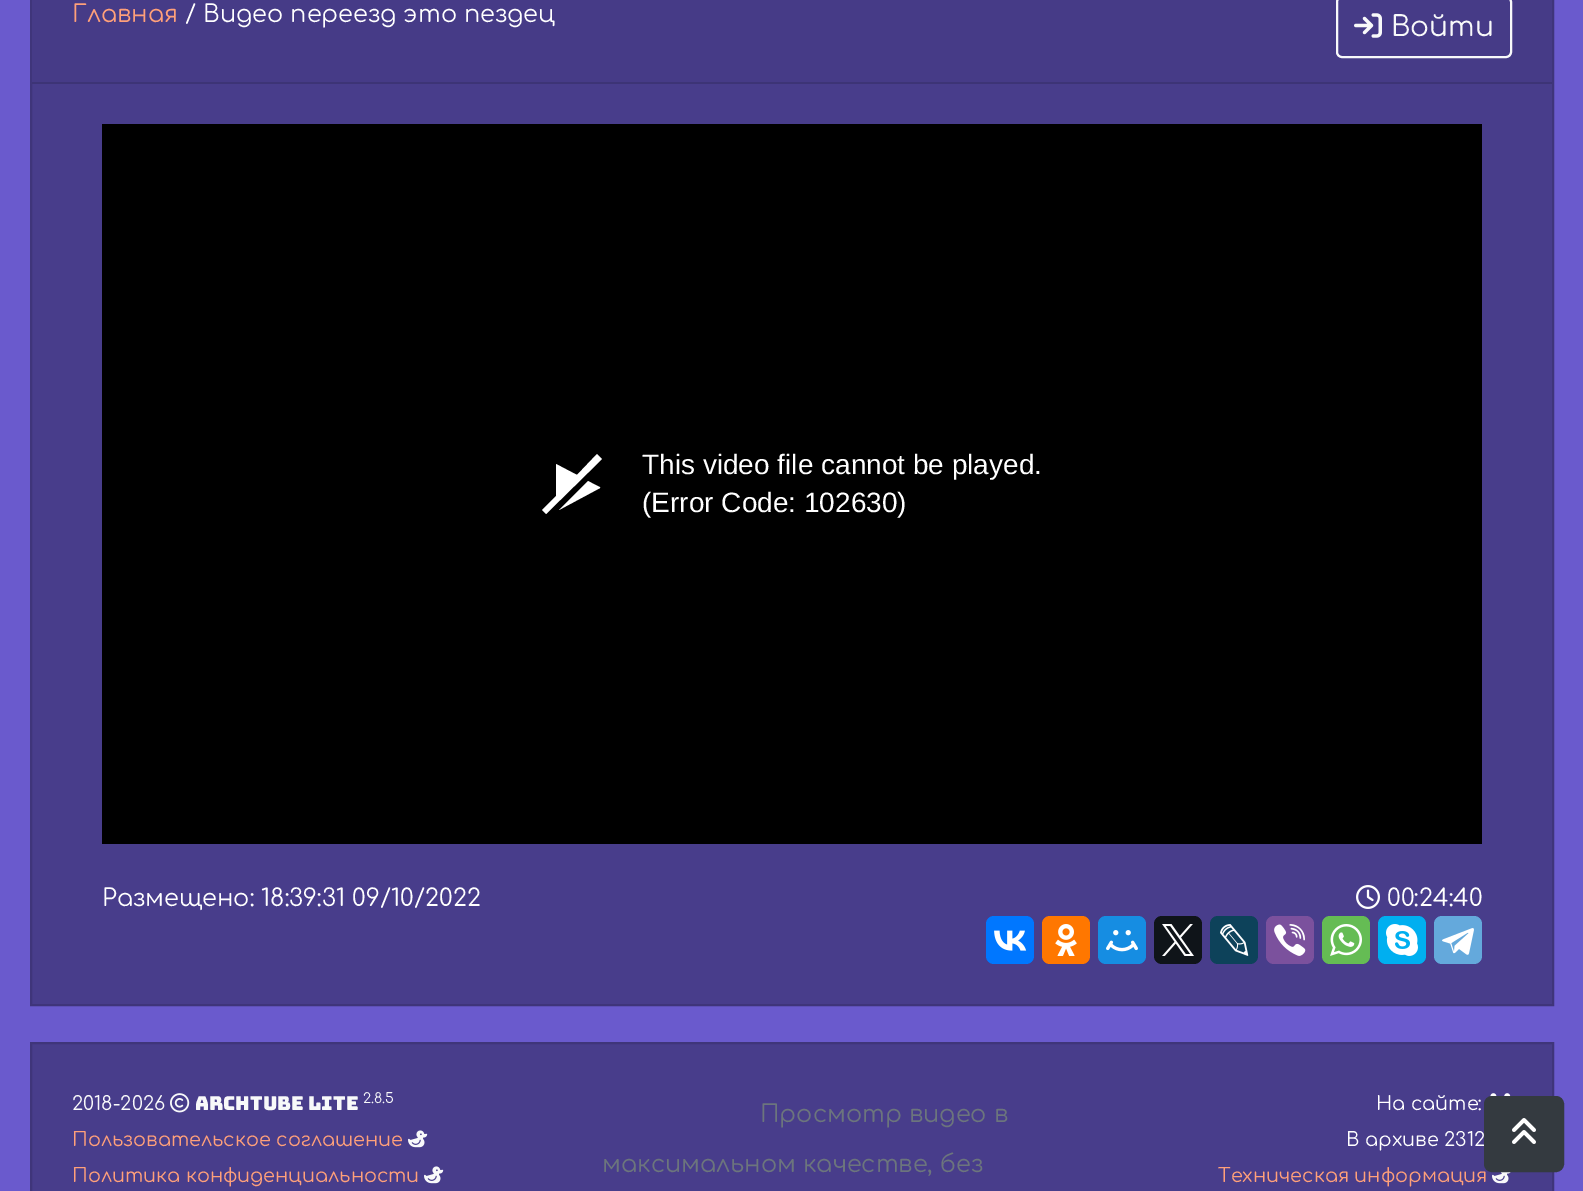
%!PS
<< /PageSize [1583 1191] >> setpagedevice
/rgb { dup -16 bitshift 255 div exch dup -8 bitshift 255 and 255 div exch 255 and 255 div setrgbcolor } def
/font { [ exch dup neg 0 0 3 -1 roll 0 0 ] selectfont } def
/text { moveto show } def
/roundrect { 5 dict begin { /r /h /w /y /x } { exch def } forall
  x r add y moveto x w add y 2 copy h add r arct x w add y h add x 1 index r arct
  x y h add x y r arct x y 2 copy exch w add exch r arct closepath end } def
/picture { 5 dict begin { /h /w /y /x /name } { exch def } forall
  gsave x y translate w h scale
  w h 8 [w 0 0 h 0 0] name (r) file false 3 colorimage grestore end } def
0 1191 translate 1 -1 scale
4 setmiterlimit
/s1 { /Comfortaa-Regular 24 font 16#FFA07A rgb } def
/s2 { /Comfortaa-Regular 24 font 16#FFFFFF rgb } def
/s3 { /Comfortaa-Regular 28 font 16#F8F9FA rgb } def
/s4 { /LiberationSans-Regular 28 font 16#FFFFFF rgb } def
/s5 { /Comfortaa-Regular 19.25 font 16#F8F9FA rgb } def
/s6 { /BungeeSpice-Regular 19.25 font 16#F8F9FA rgb } def
/s7 { /Comfortaa-Regular 14 font 16#F8F9FA rgb } def
/s8 { /Comfortaa-Regular 19.25 font 16#FFA07A rgb } def
/s9 { /Comfortaa-Regular 24 font 16#6C757D rgb } def
/s10 { /Comfortaa-Regular 19.25 font 16#FFFFFF rgb } def
16#6A5ACD rgb
0 0 1583 1191 rectfill
16#483D8B rgb
32 84 1520 920 rectfill
16#3F357A rgb
2 setlinewidth
31 -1 1522 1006 rectstroke
16#463B87 rgb
32 0 1520 82 rectfill
16#3D3476 rgb
32 82 1520 2 rectfill
s1
(Главная) 72 22 text
s2
(/ Видео переезд это пездец) 185 22 text
16#F8F9FA rgb
1337 -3 174 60 5 roundrect stroke
(pic1.raw) 1354 13 28 25 picture
s3
(Войти) 1391 36 text
16#000000 rgb
102 124 1380 720 rectfill
16#FFFFFF rgb
600 488 moveto 559 510 lineto 588 481 lineto 599 487 601 487 600 488 curveto closepath 597 454 moveto 577 475 lineto 556 464 lineto 556 496 lineto 542 510 lineto 546 514 lineto 602 459 lineto closepath fill
s4
(This video file cannot be played.) 642 474 text
(\(Error Code: 102630\)) 642 512 text
s2
(Размещено: 18:39:31 09/10/2022) 102 906 text
(pic2.raw) 1356 885 24 24 picture
(00:24:40) 1387 906 text
16#0077FF rgb
986 916 48 48 8 roundrect fill
(pic3.raw) 994 930 33 21 picture
16#FF7700 rgb
1042 916 48 48 8 roundrect fill
(pic4.raw) 1055 924 22 32 picture
16#168DE2 rgb
1098 916 48 48 8 roundrect fill
(pic5.raw) 1106 930 32 22 picture
16#0F1419 rgb
1154 916 48 48 8 roundrect fill
(pic6.raw) 1162 924 32 32 picture
16#0D425A rgb
1210 916 48 48 8 roundrect fill
(pic7.raw) 1220 924 29 32 picture
16#7B519D rgb
1266 916 48 48 8 roundrect fill
(pic8.raw) 1274 924 32 32 picture
16#65BC54 rgb
1322 916 48 48 8 roundrect fill
(pic9.raw) 1330 924 32 32 picture
16#00AFF0 rgb
1378 916 48 48 8 roundrect fill
(pic10.raw) 1386 924 32 32 picture
16#64A9DC rgb
1434 916 48 48 8 roundrect fill
(pic11.raw) 1442 928 32 27 picture
16#483D8B rgb
31 1043 moveto 1553 1043 lineto 1553 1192 lineto 31 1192 lineto closepath gsave fill grestore
16#3F357A rgb
stroke
s5
(2018-2026) 72 1110 text
(pic12.raw) 170 1093 20 20 picture
s6
(Archtube Lite) 195 1110 text
s7
(2.8.5) 363 1103 text
s8
(Пользовательское соглашение) 72 1146 text
(pic13.raw) 408 1130 20 18 picture
(Политика конфиденциальности) 72 1182 text
(pic13.raw) 424 1166 20 18 picture
s9
(Просмотр видео в) 760 1122 text
(максимальном качестве, без) 602 1172 text
s10
(На сайте:) 1376 1110 text
(pic14.raw) 1490 1093 21 4 picture
(В архиве 2312) 1346 1146 text
s8
(Техническая информация) 1218 1182 text
(pic15.raw) 1492 1172 19 12 picture
16#343A40 rgb
1485 1097 78 74 7 roundrect gsave fill grestore
stroke
(pic16.raw) 1512 1118 24 26 picture
showpage
